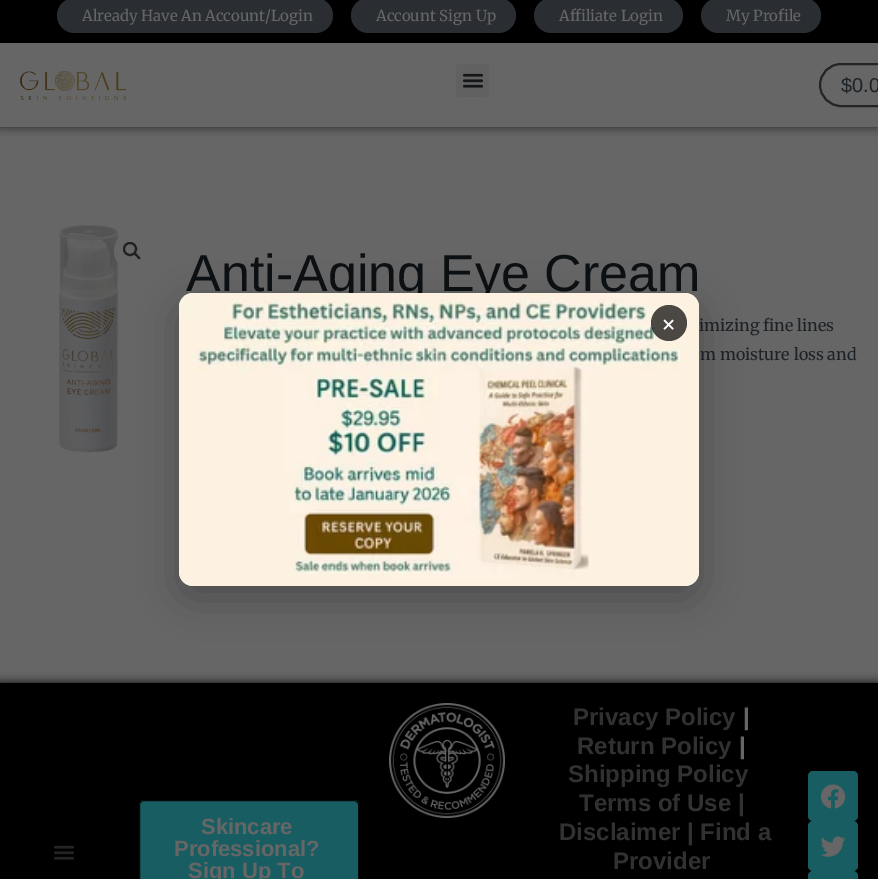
%!PS
<< /PageSize [878 879] /PageUsesTransparency true >> setpagedevice
/rgb { dup -16 bitshift 255 div exch dup -8 bitshift 255 and 255 div exch 255 and 255 div setrgbcolor } def
/font { [ exch dup neg 0 0 3 -1 roll 0 0 ] selectfont } def
/text { moveto show } def
/alpha { dup .setfillconstantalpha .setstrokeconstantalpha } def
/circle { newpath 0 360 arc closepath } def
/roundrect { 5 dict begin { /r /h /w /y /x } { exch def } forall
  x r add y moveto x w add y 2 copy h add r arct x w add y h add x 1 index r arct
  x y h add x y r arct x y 2 copy exch w add exch r arct closepath end } def
/shadow { 12 dict begin { /a /b /q /h /w /y /x } { exch def } forall gsave /was 0 def
  9 -2 -9 { dup b mul 4 div /e exch def 1 sub .425 mul 2.718 exch exp 1 add a .99 .min exch div /now exch def
    1 1 now sub 1 was sub div sub alpha /was now def
    w h .min e 2 mul add 0 gt { x e sub y e sub w e 2 mul add h e 2 mul add
      q e add b .6 mul add w h .min 2 div e add .min 0 .max roundrect fill } if } for grestore end } def
/picture { 5 dict begin { /h /w /y /x /name } { exch def } forall
  gsave x y translate w h scale
  w h 8 [w 0 0 h 0 0] name (r) file false 3 colorimage grestore end } def
0 .pushpdf14devicefilter
0 879 translate 1 -1 scale
4 setmiterlimit
/s1 { /Merriweather-Light 15 font 16#666666 rgb } def
/s2 { /LiberationSans-Regular 20 font 16#1D2226 rgb } def
/s3 { /LiberationSans-Regular 52 font 16#0C1012 rgb } def
/s4 { /Merriweather-Light 16 font 16#1D2226 rgb } def
/s5 { /LiberationSans-Bold 22 font 16#666666 rgb } def
/s6 { /LiberationSans-Bold 24 font 16#313131 rgb } def
/s7 { /LiberationSans-Bold 24 font 16#666666 rgb } def
/s8 { /Muli-Bold 22 font 16#FFFFFF rgb } def
16#666666 rgb
0 0 878 879 rectfill
gsave
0 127 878 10 rectclip
16#222426 rgb
0 43 878 84 0 5 1 shadow
grestore
16#000000 rgb
0 0 878 43 rectfill
16#2A2E32 rgb
57 -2 276 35 17.5 roundrect fill
s1
(Already Have An Account/Login) 82 21 text
16#2A2E32 rgb
351 -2 165 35 17.5 roundrect fill
s1
(Account Sign Up) 376 21 text
16#2A2E32 rgb
534 -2 149 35 17.5 roundrect fill
s1
(Affiliate Login) 559 21 text
16#2A2E32 rgb
701 -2 120 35 17.5 roundrect fill
s1
(My Profile) 726 21 text
(pic1.raw) 20 71 106 29 picture
16#616161 rgb
456 64 33 33 3 roundrect fill
(pic2.raw) 462 73 22 15 picture
16#222426 rgb
2 setlinewidth
820 64 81 42 21 roundrect stroke
s2
($0.0) 841 92 text
(pic3.raw) 59 225 60 228 picture
16#666666 rgb
132 251 18 circle fill
16#1E2023 rgb
130 249 6 circle stroke
134.5 253 moveto 135.5 252 137.5 254.5 138 255.5 curveto 138.5 256 141 257.5 140 259 curveto 139 260 137 257.5 136.5 256.5 curveto 136 256 133 254.5 134.5 253 curveto closepath fill
s3
(Anti-Aging Eye Cream) 186 291 text
s4
(imizing fine lines) 699 331 text
(m moisture loss and) 700 360 text
16#000000 rgb
0 683 878 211 0 5 0.98 shadow
0 683 878 196 rectfill
(pic4.raw) 54 845 20 15 picture
16#185D61 rgb
139 800 220 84 5 roundrect fill
0.93 alpha
16#040404 rgb
1 setlinewidth
139.5 800.5 219 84 4.5 roundrect stroke
1 alpha
s5
(Skincare) 201 834 text
(Professional?) 174 856 text
(Sign Up To) 188 878 text
(pic5.raw) 389 703 116 115 picture
s6
(Privacy Policy) 573 725 text
s7
(|) 743 725 text
s6
(Return Policy) 577 754 text
s7
(|) 739 754 text
s6
(Shipping Policy) 568 782 text
(Terms of Use |) 579 811 text
(Disclaimer | Find a) 559 840 text
(Provider) 613 869 text
16#185D61 rgb
808 771 50 50 5 roundrect fill
(pic6.raw) 820 784 26 25 picture
808 821 50 50 5 roundrect fill
(pic7.raw) 820 836 26 21 picture
808 871 50 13 5 roundrect fill
16#000000 rgb
179 305 520 293 14 20 0.25 shadow
(pic8.raw) 179 293 520 293 picture
0.7 alpha
669 323 18 circle fill
1 alpha
s8
(×) 662 331 text
.poppdf14devicefilter showpage
